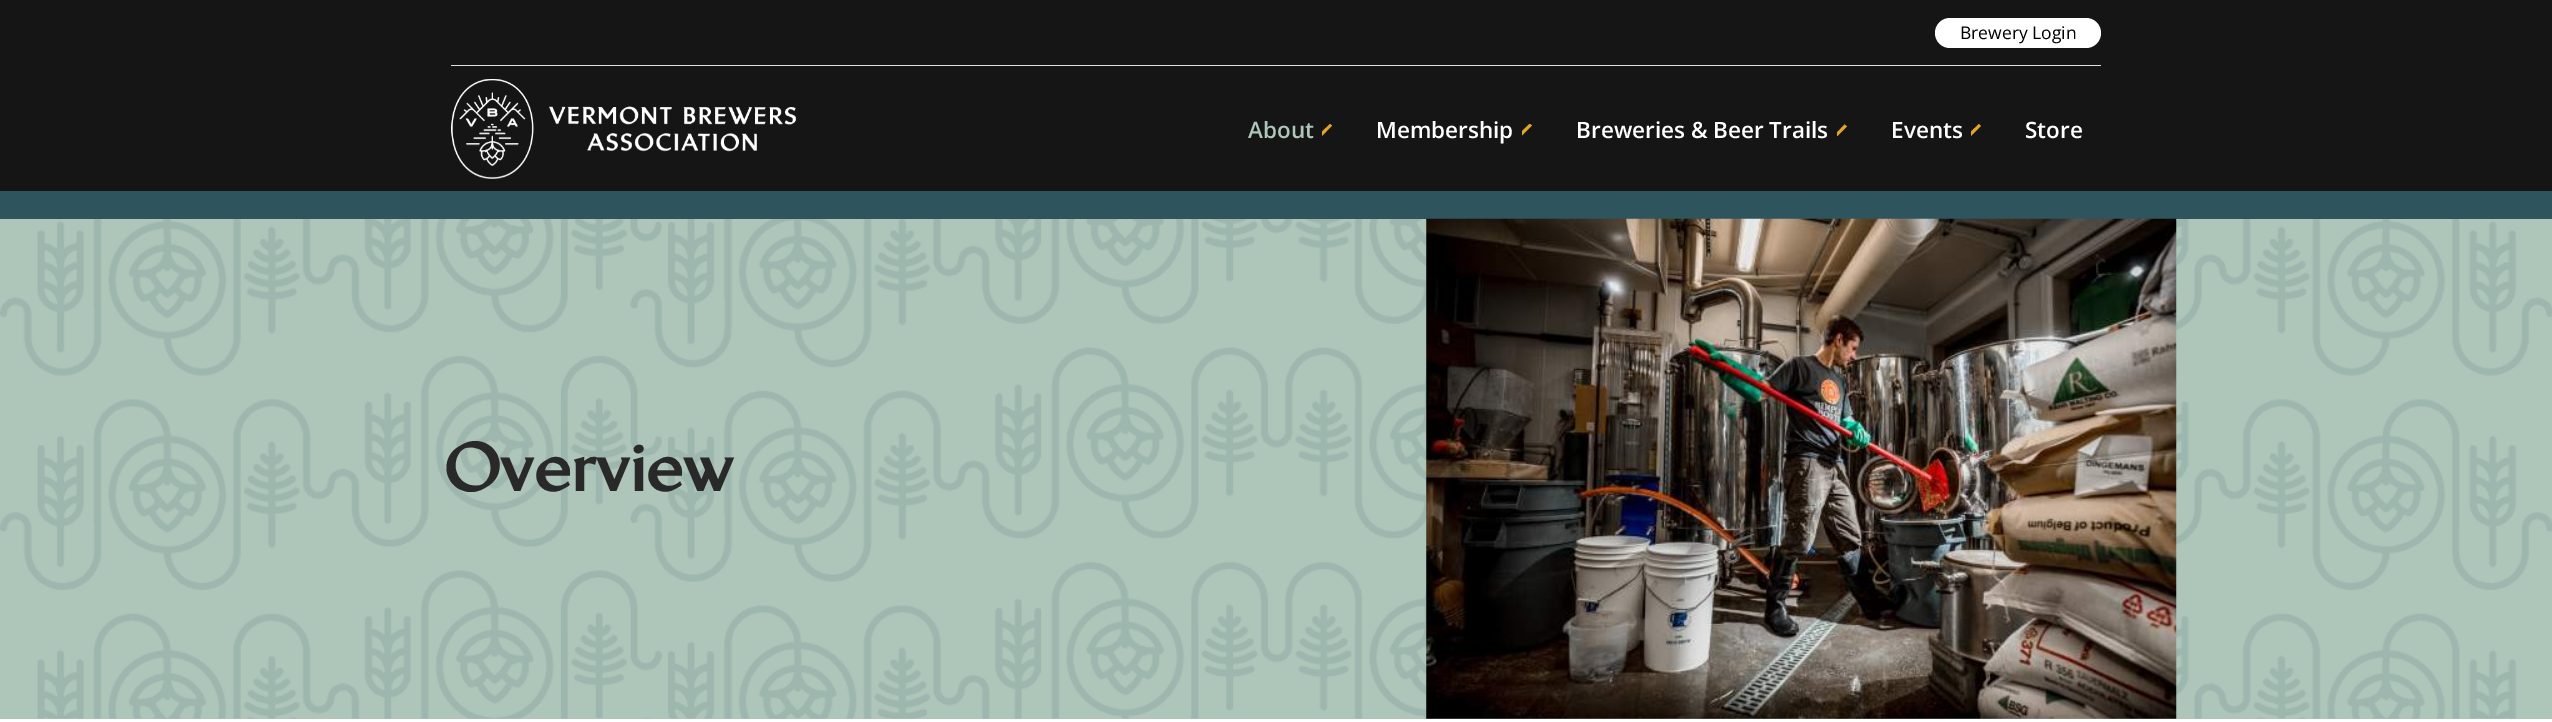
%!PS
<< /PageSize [2552 722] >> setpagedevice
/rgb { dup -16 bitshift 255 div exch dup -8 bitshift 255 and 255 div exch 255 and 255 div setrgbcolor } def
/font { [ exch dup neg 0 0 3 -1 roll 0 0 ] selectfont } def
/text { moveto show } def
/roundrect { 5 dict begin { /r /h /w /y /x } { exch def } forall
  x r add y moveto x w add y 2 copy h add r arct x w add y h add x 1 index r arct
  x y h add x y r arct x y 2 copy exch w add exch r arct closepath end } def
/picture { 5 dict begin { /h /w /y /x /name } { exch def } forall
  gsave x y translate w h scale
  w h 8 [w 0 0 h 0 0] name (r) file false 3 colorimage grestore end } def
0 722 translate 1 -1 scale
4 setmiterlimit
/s1 { /OpenSans-Regular 17.5 font 16#000000 rgb } def
/s2 { /OpenSans-SemiBold 22.5 font 16#AEC6BA rgb } def
/s3 { /OpenSans-SemiBold 22.5 font 16#FFFFFF rgb } def
/s4 { /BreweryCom-Black 67.5 font 16#292929 rgb } def
16#FFFFFF rgb
0 0 2552 722 rectfill
16#151515 rgb
0 0 2552 191 rectfill
16#E1DFDA rgb
451 65 1650 1 rectfill
16#FFFFFF rgb
1935 18 166 30 15 roundrect fill
s1
(Brewery Login) 1960 39 text
(pic1.raw) 451 79 345 100 picture
s2
(About) 1248 138 text
16#E4A428 rgb
1330 124 moveto 1322 131.5 lineto 1322 136 lineto 1332 125.5 lineto closepath fill
s3
(Membership) 1376 138 text
16#E4A428 rgb
1530 124 moveto 1529.5 124 lineto 1522 131 lineto 1522 135.5 lineto 1532 125.5 lineto closepath fill
s3
(Breweries & Beer Trails) 1576 138 text
16#E4A428 rgb
1837 136 moveto 1837.5 136 lineto 1847 126.5 lineto 1844.5 124.5 lineto 1837 132.5 lineto closepath fill
s3
(Events) 1891 138 text
16#E4A428 rgb
1979 124 moveto 1971 131.5 lineto 1971 136 lineto 1981 126 lineto closepath fill
s3
(Store) 2025 138 text
16#2E545E rgb
0 191 2552 28 rectfill
16#AEC6BA rgb
0 219 2552 500 rectfill
(pic2.raw) 0 219 2552 500 picture
s4
(Overview) 445 491 text
(pic3.raw) 1426 218 751 501 picture
showpage
